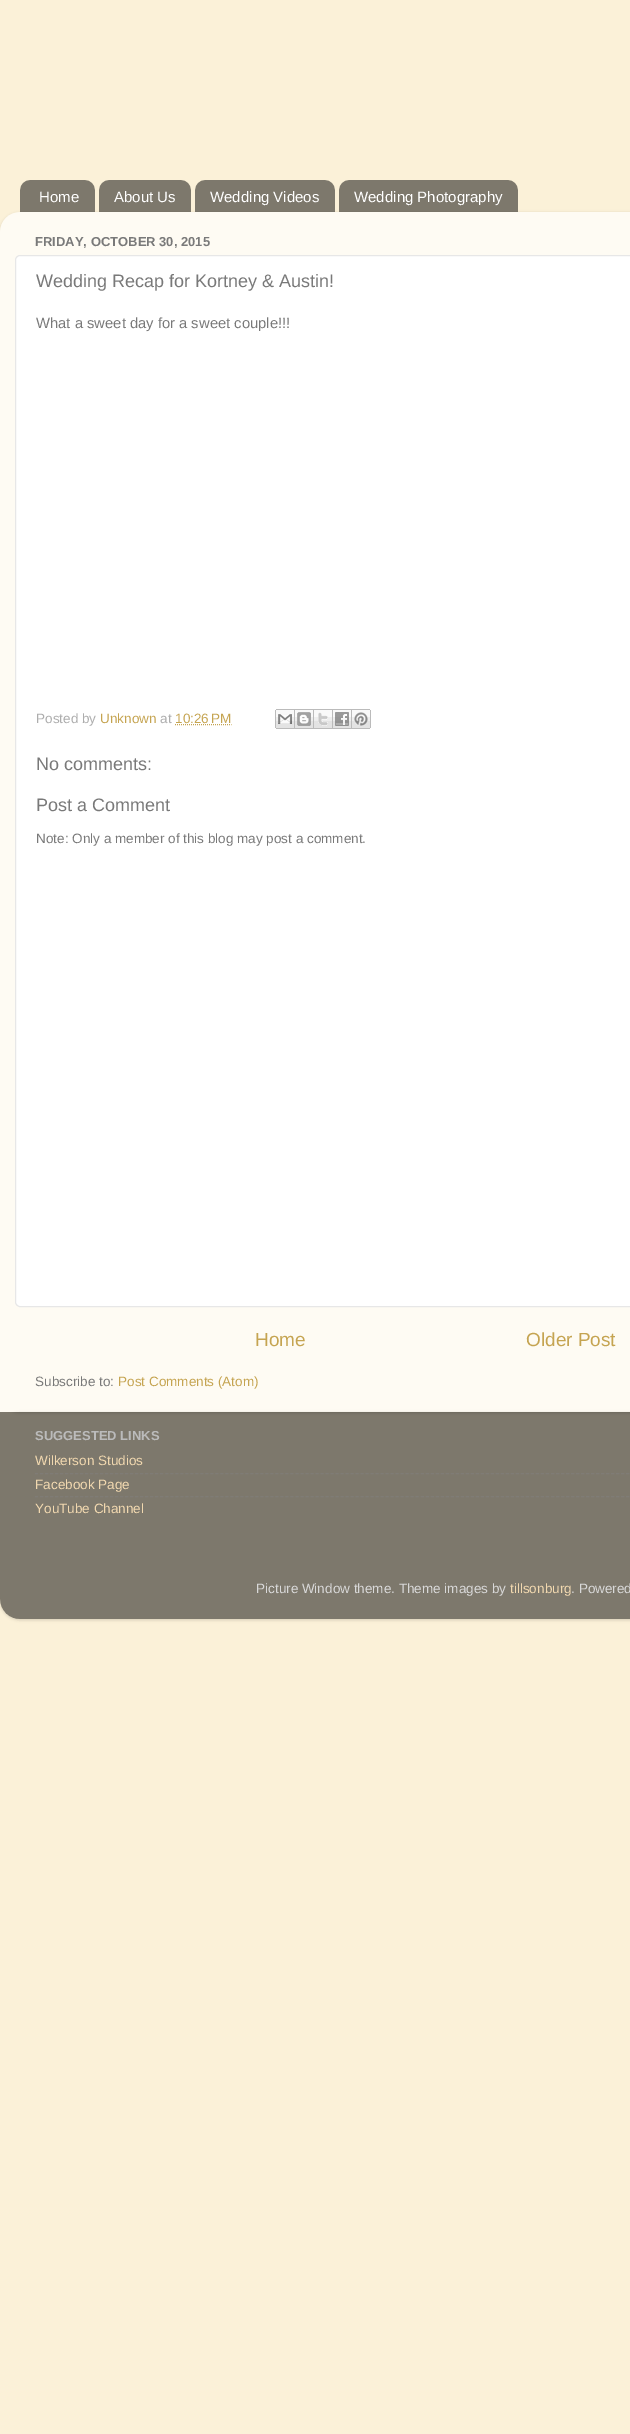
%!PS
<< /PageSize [630 2434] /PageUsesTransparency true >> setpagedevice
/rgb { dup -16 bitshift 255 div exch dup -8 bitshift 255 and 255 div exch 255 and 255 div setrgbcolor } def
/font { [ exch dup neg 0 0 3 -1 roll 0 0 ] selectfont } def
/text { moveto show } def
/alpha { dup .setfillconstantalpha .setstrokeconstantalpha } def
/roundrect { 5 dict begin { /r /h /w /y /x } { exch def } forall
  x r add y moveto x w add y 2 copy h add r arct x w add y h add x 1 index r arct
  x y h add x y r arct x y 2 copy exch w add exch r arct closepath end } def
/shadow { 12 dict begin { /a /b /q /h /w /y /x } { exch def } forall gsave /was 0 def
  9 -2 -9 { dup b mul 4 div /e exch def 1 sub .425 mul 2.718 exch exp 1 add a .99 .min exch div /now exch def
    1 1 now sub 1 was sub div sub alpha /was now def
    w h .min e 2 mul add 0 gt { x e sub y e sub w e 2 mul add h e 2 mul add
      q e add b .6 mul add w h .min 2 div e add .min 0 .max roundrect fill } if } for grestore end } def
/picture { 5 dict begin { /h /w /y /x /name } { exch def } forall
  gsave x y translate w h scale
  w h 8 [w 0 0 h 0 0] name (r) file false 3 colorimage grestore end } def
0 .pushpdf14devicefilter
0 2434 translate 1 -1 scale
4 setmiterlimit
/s1 { /LiberationSans-Regular 15 font 16#FFFFFF rgb } def
/s2 { /LiberationSans-Bold 13 font 16#797979 rgb } def
/s3 { /LiberationSans-Regular 18 font 16#797979 rgb } def
/s4 { /LiberationSans-Regular 14.8 font 16#797979 rgb } def
/s5 { /LiberationSans-Regular 13.5 font 16#ADADAD rgb } def
/s6 { /LiberationSans-Regular 13.5 font 16#C5A451 rgb } def
/s7 { /LiberationSans-Regular 13.5 font 16#797979 rgb } def
/s8 { /LiberationSans-Regular 19 font 16#C5A451 rgb } def
/s9 { /LiberationSans-Bold 13 font 16#BBBBBB rgb } def
/s10 { /LiberationSans-Regular 13.5 font 16#F1D8AF rgb } def
/s11 { /LiberationSans-Regular 13.5 font 16#D8D8D8 rgb } def
16#FBF1D8 rgb
0 0 630 2434 rectfill
(pic1.raw) 20 180 75 32 picture
s1
(Home) 39 202 text
(pic2.raw) 99 180 92 32 picture
(About Us) 114 202 text
(pic3.raw) 195 180 140 32 picture
(Wedding Videos) 210 202 text
(pic4.raw) 339 180 179 32 picture
(Wedding Photography) 354 202 text
gsave
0 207 moveto 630 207 lineto 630 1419 lineto 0 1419 lineto closepath 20 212 moveto 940 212 lineto 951 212 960 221 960 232 curveto 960 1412 lineto 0 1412 lineto 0 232 lineto 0 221 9 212 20 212 curveto closepath eoclip newpath
16#000000 rgb
0 213 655 1200 20 1.5 0.15 shadow
grestore
(pic5.raw) 0 212 630 1200 picture
s2
(FRIDAY, OCTOBER 30, 2015) 35 246 text
16#FFFFFF rgb
15.5 255.5 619 1051 4.5 roundrect gsave fill grestore
16#E7E7E7 rgb
stroke
s3
(Wedding Recap for Kortney & Austin!) 36 287 text
s4
(What a sweet day for a sweet couple!!!) 36 328 text
s5
(Posted by) 36 723 text
s6
(Unknown) 100 723 text
s5
(at) 160 723 text
s6
(10:26 PM) 175 723 text
[1 1] 0 setdash
175 724.5 moveto 231.5 724.5 lineto stroke
(pic6.raw) 275 709 20 20 picture
(pic7.raw) 295 709 19 20 picture
(pic8.raw) 314 709 19 20 picture
(pic9.raw) 333 709 19 20 picture
(pic10.raw) 352 709 19 20 picture
s3
(No comments:) 36 770 text
(Post a Comment) 36 811 text
s7
(Note: Only a member of this blog may post a comment.) 36 843 text
s8
(Home) 255 1346 text
(Older Post) 526 1346 text
s7
(Subscribe to:) 35 1386 text
s6
(Post Comments \(Atom\)) 118 1386 text
gsave
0 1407 moveto 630 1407 lineto 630 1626 lineto 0 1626 lineto closepath 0 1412 moveto 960 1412 lineto 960 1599 lineto 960 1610 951 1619 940 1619 curveto 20 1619 lineto 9 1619 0 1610 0 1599 curveto closepath eoclip newpath
16#000000 rgb
0 1413 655 207 20 1.5 0.15 shadow
grestore
(pic11.raw) 0 1412 630 207 picture
s9
(SUGGESTED LINKS) 35 1440 text
s10
(Wilkerson Studios) 35 1465 text
16#7F7C76 rgb
[3 2.01] 0 setdash
35 1473.5 moveto 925 1473.5 lineto stroke
s10
(Facebook Page) 35 1489 text
16#7F7C76 rgb
35 1496.5 moveto 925 1496.5 lineto stroke
s10
(YouTube Channel) 35 1513 text
s11
(Picture Window theme. Theme images by) 256 1593 text
s10
(tillsonburg) 510 1593 text
s11
(. Powered) 571 1593 text
.poppdf14devicefilter showpage
